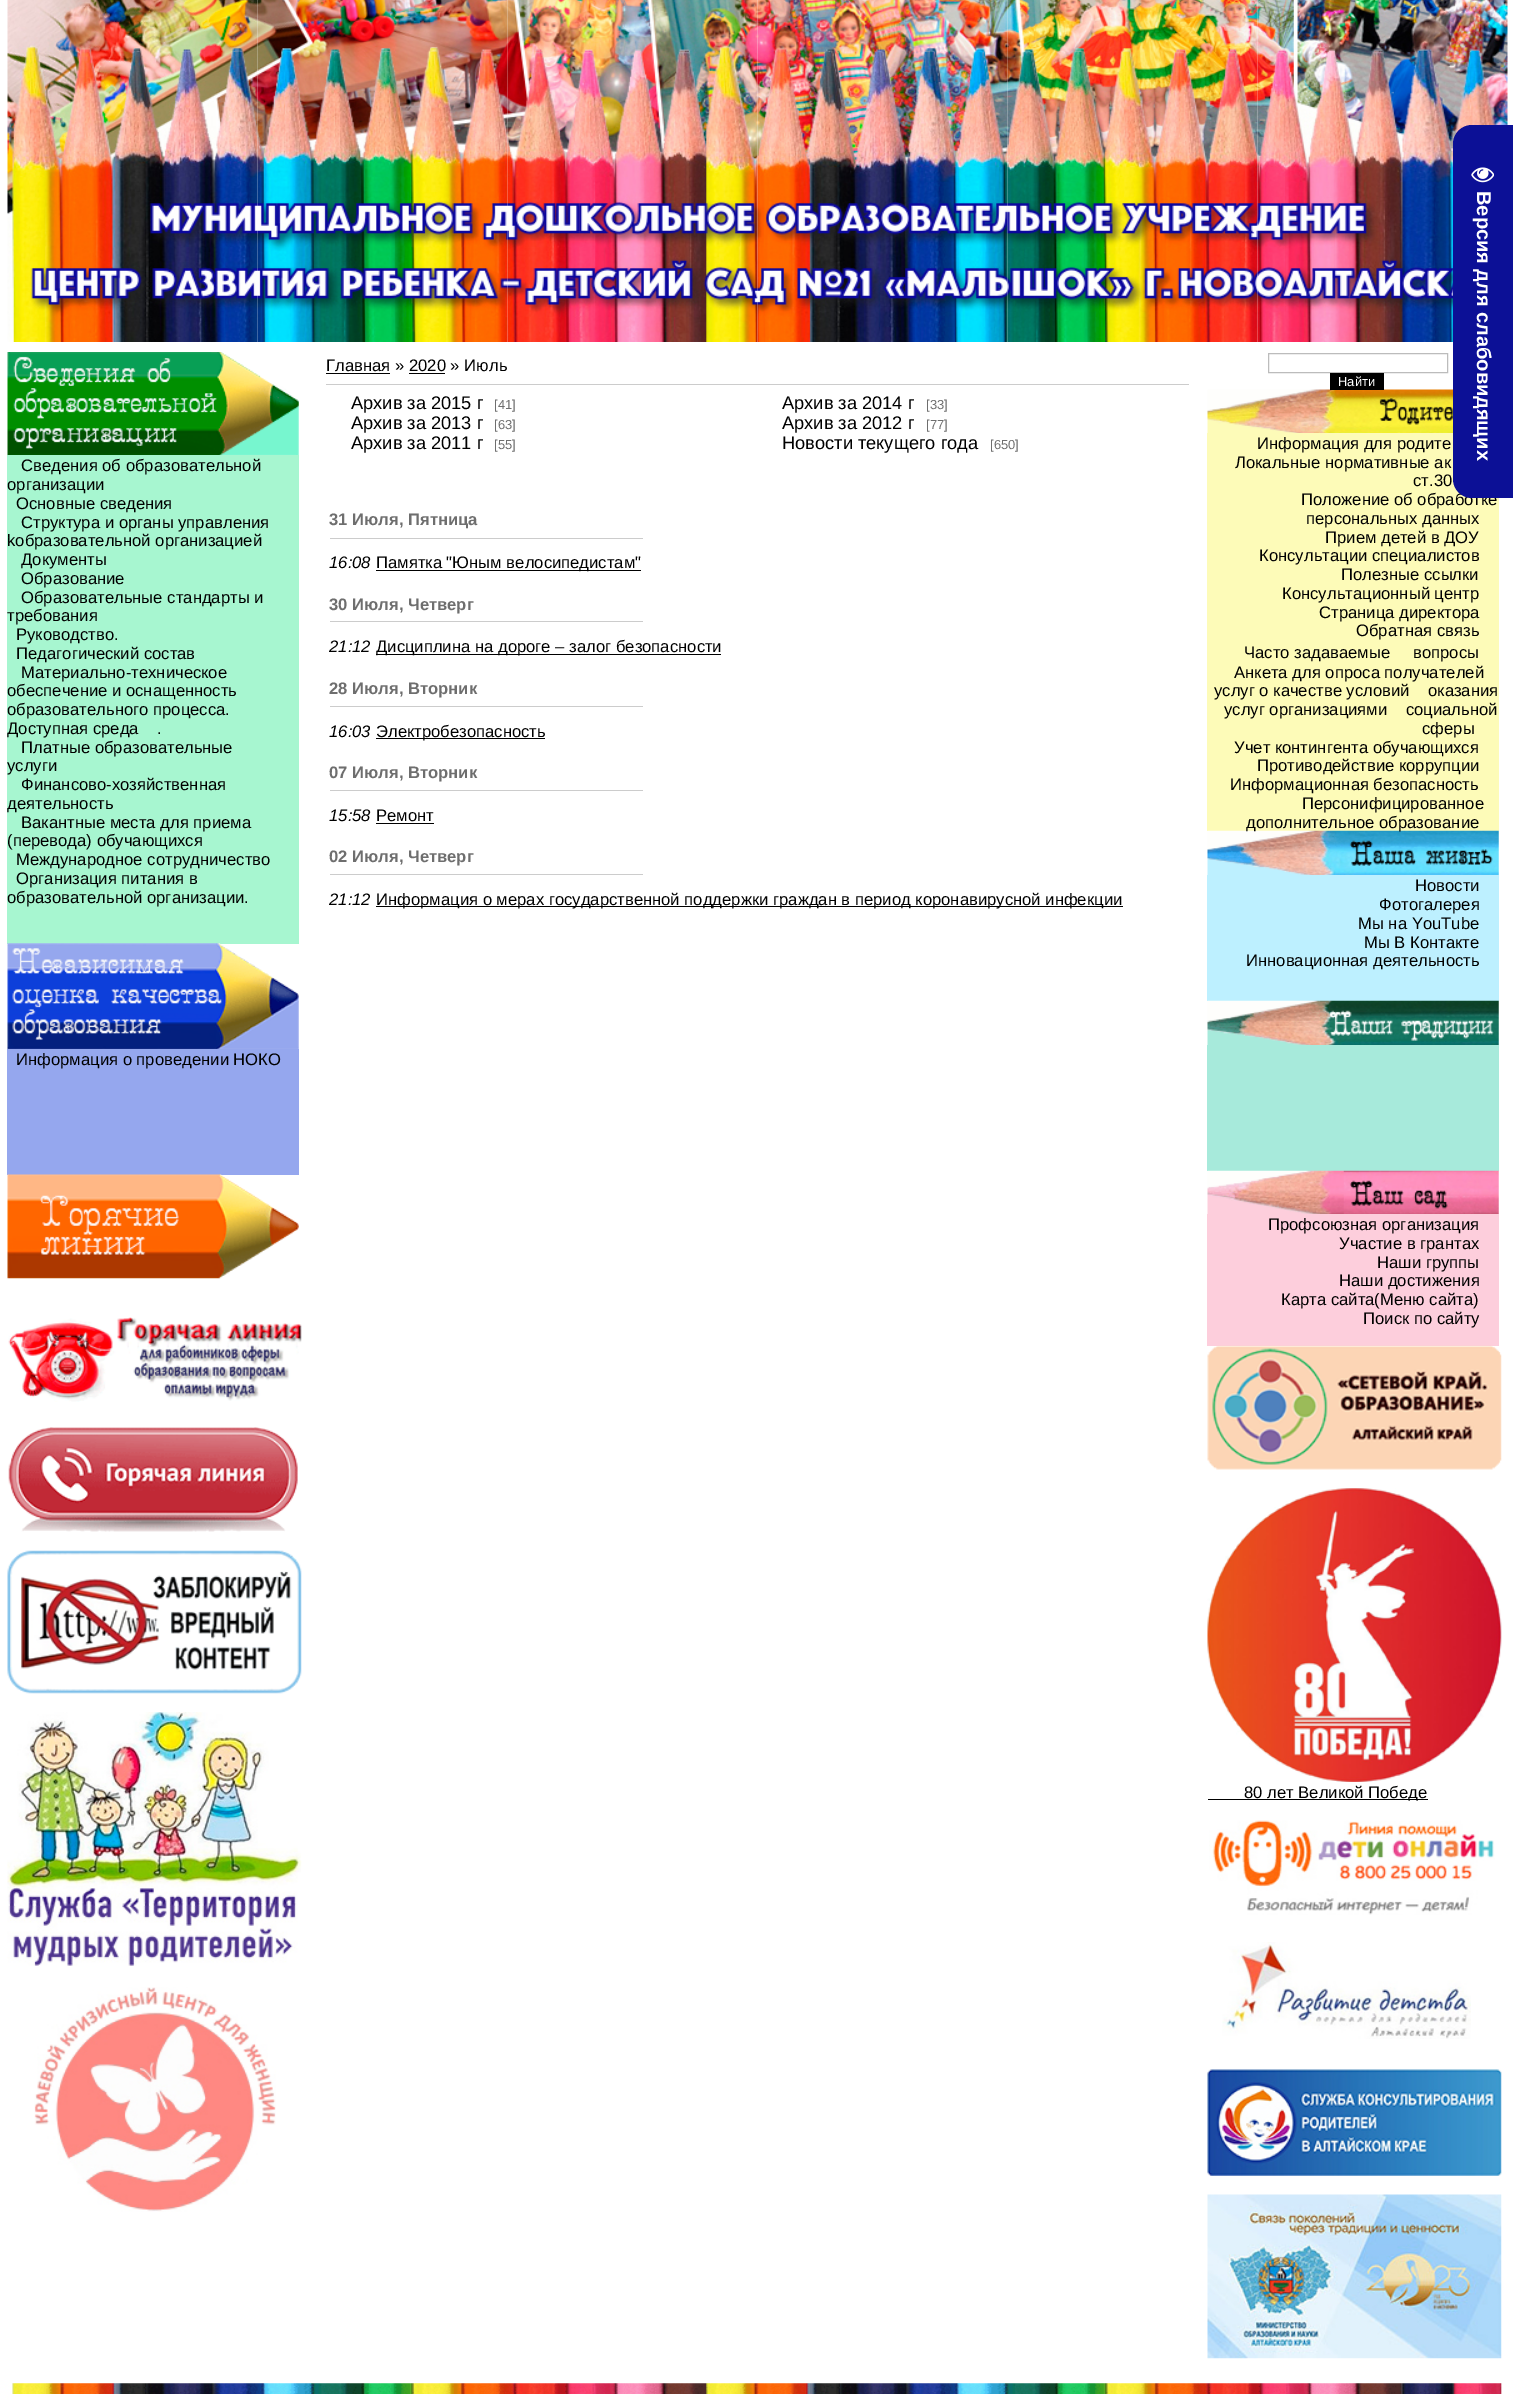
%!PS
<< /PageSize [1513 2394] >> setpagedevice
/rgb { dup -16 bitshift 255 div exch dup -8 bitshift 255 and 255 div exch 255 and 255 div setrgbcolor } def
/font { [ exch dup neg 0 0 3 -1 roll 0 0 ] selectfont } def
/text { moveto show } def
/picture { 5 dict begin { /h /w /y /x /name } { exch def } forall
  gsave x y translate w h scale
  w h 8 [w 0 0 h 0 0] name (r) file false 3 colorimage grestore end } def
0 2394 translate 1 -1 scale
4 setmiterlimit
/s1 { /LiberationSans-Regular 16.65 font 16#000000 rgb } def
/s2 { /LiberationSans-Regular 18.25 font 16#000000 rgb } def
/s3 { /LiberationSans-Regular 13 font 16#6E6E6E rgb } def
/s4 { /LiberationSans-Bold 16.65 font 16#6E6E6E rgb } def
/s5 { /LiberationSans-Italic 16.65 font 16#000000 rgb } def
/s6 { /LiberationSans-Regular 13 font 16#FFFFFF rgb } def
16#FFFFFF rgb
0 0 1513 2394 rectfill
(pic2.raw) 7 0 251 342 picture
(pic3.raw) 257 0 251 342 picture
(pic4.raw) 507 0 251 342 picture
(pic5.raw) 757 0 251 342 picture
(pic6.raw) 1007 0 251 342 picture
(pic7.raw) 1257 0 251 342 picture
16#FDFBB8 rgb
1207 433 292 398 rectfill
s1
(Положение об обработке) 1301 505 text
16#0C1096 rgb
1472 125 moveto 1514 125 lineto 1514 498 lineto 1472 498 lineto 1461.5 498 1453 489.5 1453 479 curveto 1453 144 lineto 1453 133.5 1461.5 125 1472 125 curveto closepath fill
(pic1.raw) 1471 167 23 16 picture
/LiberationSans-Bold 20 font
16#FFFFFF rgb
gsave 1477 191 translate 90 rotate 0 0 moveto (Версия для слабовидящих) show grestore
(pic8.raw) 7 352 292 103 picture
16#A7F6D0 rgb
7 455 292 489 rectfill
s1
(Сведения об образовательной) 21 471 text
(организации) 7 490 text
(Основные сведения) 16 509 text
(Структура и органы управления) 21 528 text
(kобразовательной организацией) 7 546 text
(Документы) 21 565 text
(Образование) 21 584 text
(Образовательные стандарты и) 21 603 text
(требования) 7 621 text
(Руководство.) 16 640 text
(Педагогический состав) 16 659 text
(Материально-техническое) 21 678 text
(обеспечение и оснащенность) 7 696 text
(образовательного процесса.) 7 715 text
(Доступная среда) 7 734 text
(.) 157 734 text
(Платные образовательные) 21 753 text
(услуги) 7 771 text
(Финансово-хозяйственная) 21 790 text
(деятельность) 7 809 text
(Вакантные места для приема) 21 828 text
(\(перевода\) обучающихся) 7 846 text
(Международное сотрудничество) 16 865 text
(Организация питания в) 16 884 text
(образовательной организации.) 7 903 text
(pic9.raw) 7 943 292 106 picture
16#95A7EE rgb
7 1049 292 126 rectfill
s1
(Информация о проведении НОКО) 16 1065 text
(pic10.raw) 7 1174 292 105 picture
(pic11.raw) 8 1317 294 85 picture
(pic12.raw) 8 1427 290 105 picture
(pic13.raw) 7 1550 295 144 picture
(pic14.raw) 7 1712 295 254 picture
(pic15.raw) 34 1987 242 225 picture
(Главная » 2020 » Июль) 326 371 text
326 373 64 1 rectfill
409 373 36 1 rectfill
16#CCCCCC rgb
326 384 863 1 rectfill
s2
(Архив за 2015 г) 351 409 text
s3
([41]) 494 409 text
s2
(Архив за 2014 г) 782 409 text
s3
([33]) 926 409 text
s2
(Архив за 2013 г) 351 429 text
s3
([63]) 494 429 text
s2
(Архив за 2012 г) 782 429 text
s3
([77]) 926 429 text
s2
(Архив за 2011 г) 351 449 text
s3
([55]) 494 449 text
s2
(Новости текущего года) 782 449 text
s3
([650]) 990 449 text
s4
(31 Июля, Пятница) 329 525 text
16#CCCCCC rgb
330 538 313 1 rectfill
s5
(16:08) 329 568 text
376 570 265 1 rectfill
s1
(Памятка "Юным велосипедистам") 376 568 text
s4
(30 Июля, Четверг) 329 610 text
16#CCCCCC rgb
330 621 313 1 rectfill
s5
(21:12) 329 652 text
376 654 345 1 rectfill
s1
(Дисциплина на дороге – залог безопасности) 376 652 text
s4
(28 Июля, Вторник) 329 694 text
16#CCCCCC rgb
330 706 313 1 rectfill
s5
(16:03) 329 737 text
376 738 169 1 rectfill
s1
(Электробезопасность) 376 737 text
s4
(07 Июля, Вторник) 329 778 text
16#CCCCCC rgb
330 790 313 1 rectfill
s5
(15:58) 329 821 text
s1
(Ремонт) 376 821 text
376 823 58 1 rectfill
s4
(02 Июля, Четверг) 329 862 text
16#CCCCCC rgb
330 874 313 1 rectfill
s5
(21:12) 329 905 text
376 906 747 1 rectfill
s1
(Информация о мерах государственной поддержки граждан в период коронавирусной инфекции) 376 905 text
16#BCBCBC rgb
1268.5 353.5 179 19 rectstroke
(pic16.raw) 1207 389 246 44 picture
16#000000 rgb
1330 373 54 17 rectfill
s6
(Найти) 1338 386 text
s1
(Информация для родите) 1257 449 text
(Локальные нормативные ак) 1235 468 text
(ст.30) 1413 486 text
(персональных данных) 1306 524 text
(Прием детей в ДОУ) 1325 543 text
(Консультации специалистов) 1259 561 text
(Полезные ссылки) 1341 580 text
(Консультационный центр) 1282 599 text
(Страница директора) 1319 618 text
(Обратная связь) 1356 636 text
(Часто задаваемые) 1244 658 text
(вопросы) 1413 658 text
(Анкета для опроса получателей) 1234 678 text
(услуг о качестве условий    оказания) 1214 696 text
(услуг организациями    социальной) 1224 715 text
(сферы) 1422 734 text
(Учет контингента обучающихся) 1234 753 text
(Противодействие коррупции) 1257 771 text
(Информационная безопасность) 1230 790 text
(Персонифицированное) 1302 809 text
(pic17.raw) 1207 830 292 45 picture
(дополнительное образование) 1246 828 text
16#BDF0FF rgb
1207 875 292 126 rectfill
s1
(Новости) 1415 891 text
(Фотогалерея) 1379 910 text
(Мы на YouTube) 1358 929 text
(Мы В Контакте) 1364 948 text
(Инновационная деятельность) 1246 966 text
(pic18.raw) 1207 1000 292 45 picture
16#A7EADB rgb
1207 1045 292 126 rectfill
(pic19.raw) 1207 1170 292 44 picture
16#FDCEDC rgb
1207 1214 292 132 rectfill
s1
(Профсоюзная организация) 1268 1230 text
(Участие в грантах) 1339 1249 text
(Наши группы) 1377 1268 text
(Наши достижения) 1339 1286 text
(Карта сайта\(Меню сайта\)) 1281 1305 text
(Поиск по сайту) 1363 1324 text
(pic20.raw) 1207 1345 295 125 picture
(pic21.raw) 1207 1488 295 294 picture
1208 1799 220 1 rectfill
(80 лет Великой Победе) 1244 1798 text
(pic22.raw) 1209 1800 286 115 picture
(pic23.raw) 1222 1942 249 97 picture
(pic24.raw) 1207 2069 295 107 picture
(pic25.raw) 1207 2194 295 165 picture
(pic26.raw) 12 2383 1490 11 picture
showpage
